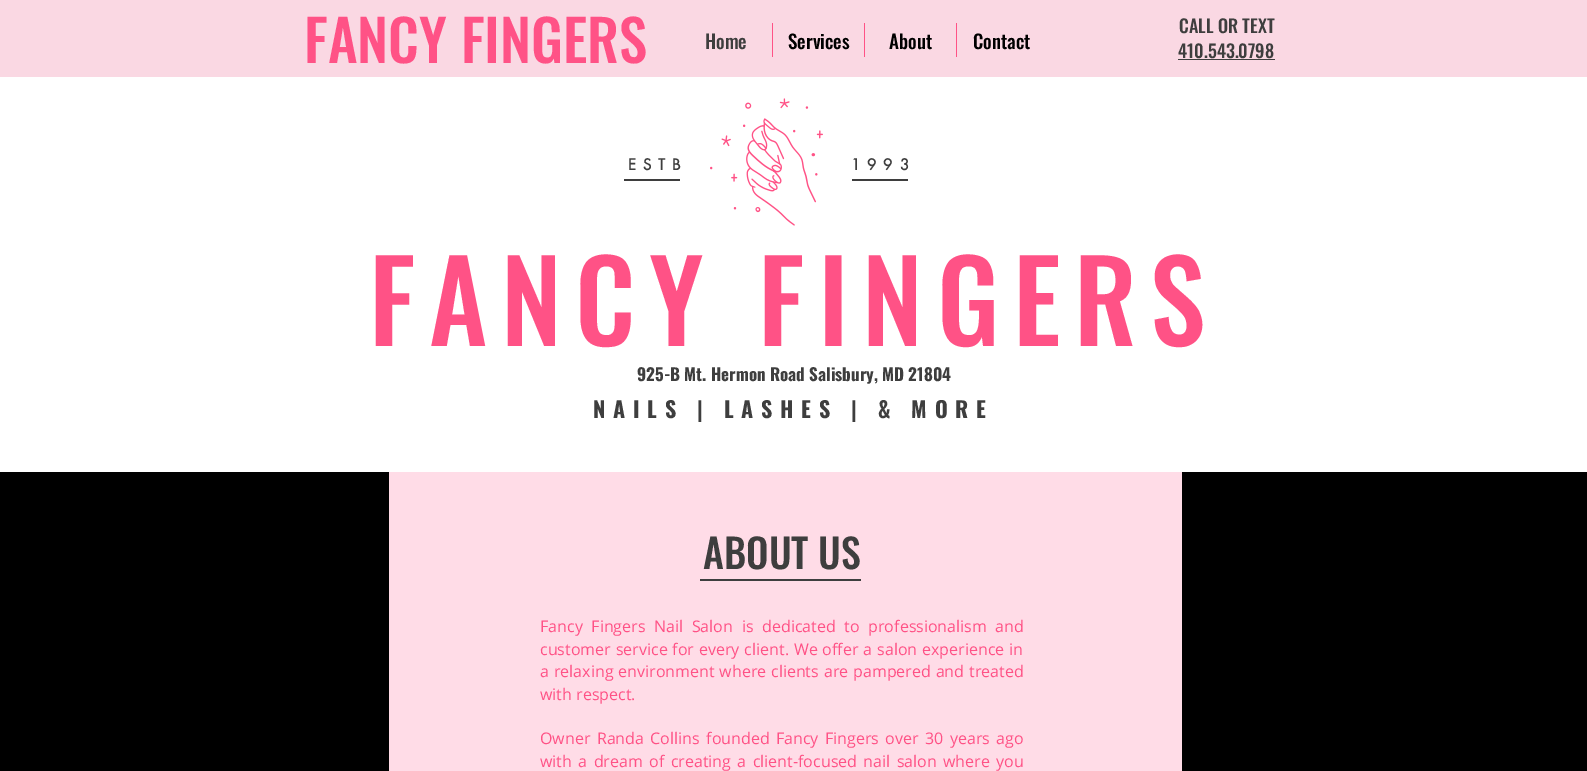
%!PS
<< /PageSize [1587 771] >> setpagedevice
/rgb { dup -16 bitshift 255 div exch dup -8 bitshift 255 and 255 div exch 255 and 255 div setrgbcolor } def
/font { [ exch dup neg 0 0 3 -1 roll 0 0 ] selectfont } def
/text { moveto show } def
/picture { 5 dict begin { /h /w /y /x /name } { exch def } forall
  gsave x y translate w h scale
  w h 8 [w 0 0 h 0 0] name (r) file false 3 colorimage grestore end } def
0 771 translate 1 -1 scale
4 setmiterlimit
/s1 { /Oswald-Medium 57 font 16#FF5286 rgb } def
/s2 { /Oswald-Medium 18 font 16#3E3E3E rgb } def
/s3 { /Oswald-Medium 19 font 16#3E3E3E rgb } def
/s4 { /Oswald-Medium 19 font 16#000000 rgb } def
/s5 { /Oswald-Bold 17 font 16#3E3E3E rgb } def
/s6 { /Oswald-Medium 40 font 16#3E3E3E rgb } def
/s7 { /OpenSans-Regular 16 font 16#FF5286 rgb } def
16#FFDCE7 rgb
0 0 1587 771 rectfill
16#FAD8E3 rgb
0 0 1587 77 rectfill
s1
(FANCY FINGERS) 304 63 text
s2
(CALL OR TEXT) 1179 33 text
s3
(Home) 705 49 text
16#FF5286 rgb
772 23 1 34 rectfill
s4
(Services) 788 49 text
16#FF5286 rgb
864 23 1 34 rectfill
s4
(About) 889 49 text
16#FF5286 rgb
956 23 1 34 rectfill
s4
(Contact) 973 49 text
s2
(410.543.0798) 1178 58 text
1178 59 97 1 rectfill
16#FFFFFF rgb
0 77 1587 395 rectfill
/futura-Bold 15 font
16#3E3E3E rgb
628 170 moveto 7 0 (ESTB) ashow
(pic1.raw) 710 98 113 128 picture
851 170 moveto 7 0 (1993) ashow
624 179 56 2 rectfill
852 179 56 2 rectfill
/Oswald-Medium 112 font
16#FF5286 rgb
369 346 moveto 13.5 0 (FANCY FINGERS) ashow
s5
(925-B Mt. Hermon Road Salisbury, MD 21804) 637 381 text
/Oswald-Bold 22 font
593 418 moveto 7.7 0 (NAILS | LASHES | & MORE) ashow
16#000000 rgb
0 472 389 299 rectfill
s6
(ABOUT US) 703 569 text
700 579 161 2 rectfill
/OpenSans-Regular 16 font
16#FF5286 rgb
540 632 moveto 4.5 0 32 (Fancy Fingers Nail Salon is dedicated to professionalism and) widthshow
540 655 moveto 0.75 0 32 (customer service for every client. We offer a salon experience in) widthshow
540 677 moveto 0.75 0 32 (a relaxing environment where clients are pampered and treated) widthshow
(with respect.) 540 700 text
540 744 moveto 2.25 0 32 (Owner Randa Collins founded Fancy Fingers over 30 years ago) widthshow
540 767 moveto 2.25 0 32 (with a dream of creating a client-focused nail salon where you) widthshow
16#000000 rgb
1182 472 405 299 rectfill
showpage
